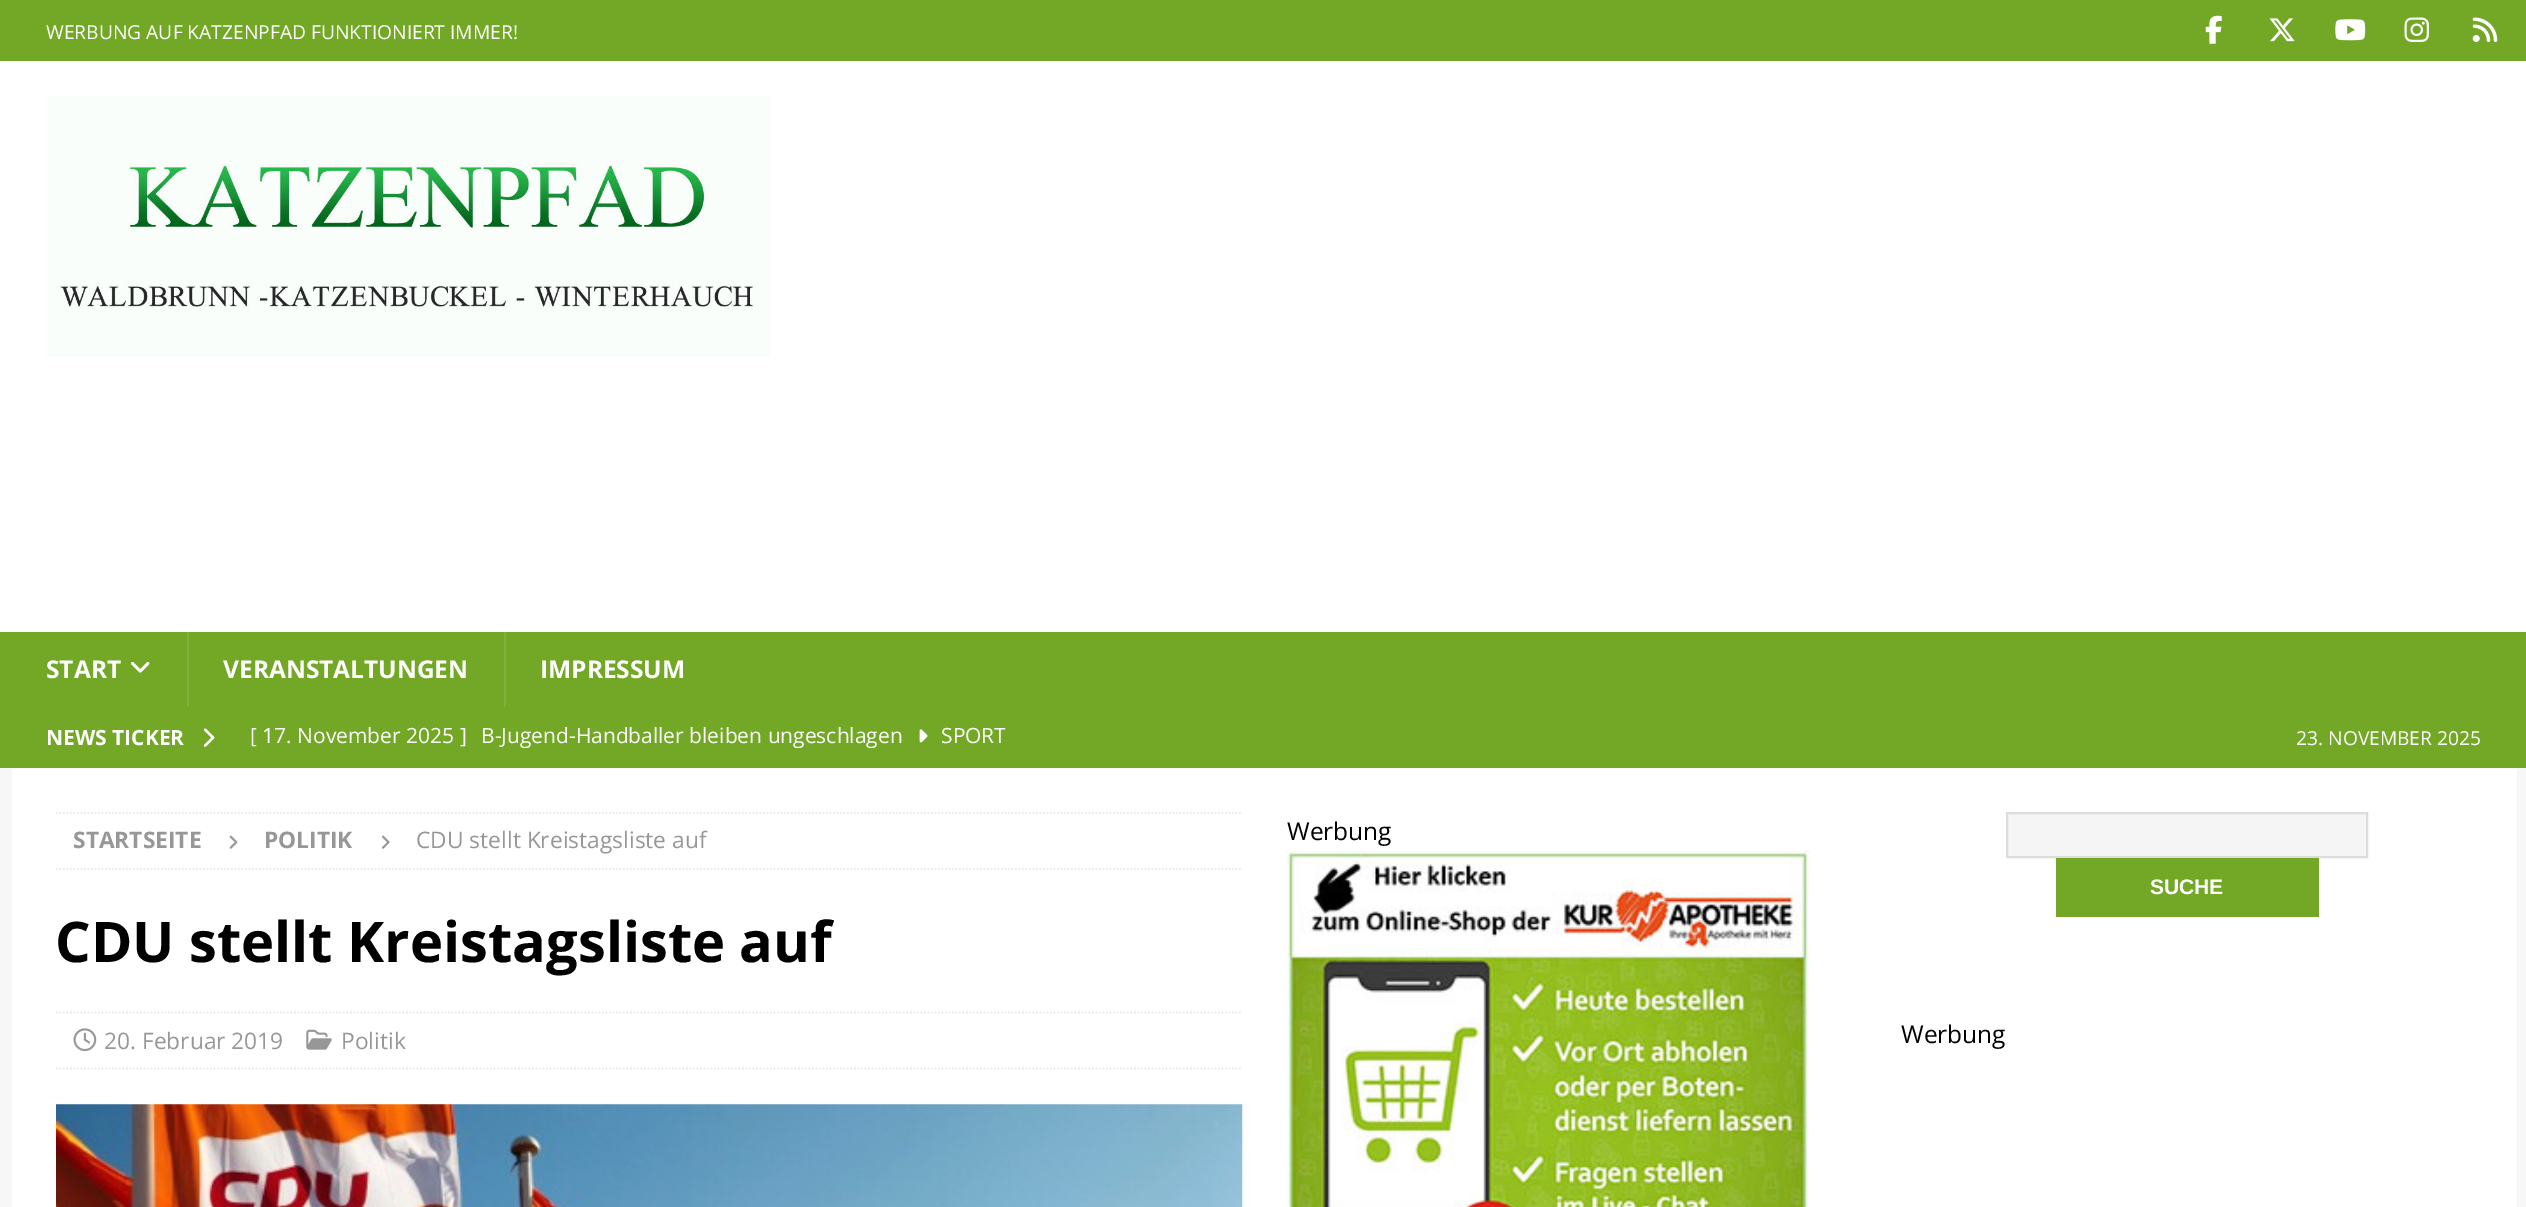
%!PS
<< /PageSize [2526 1207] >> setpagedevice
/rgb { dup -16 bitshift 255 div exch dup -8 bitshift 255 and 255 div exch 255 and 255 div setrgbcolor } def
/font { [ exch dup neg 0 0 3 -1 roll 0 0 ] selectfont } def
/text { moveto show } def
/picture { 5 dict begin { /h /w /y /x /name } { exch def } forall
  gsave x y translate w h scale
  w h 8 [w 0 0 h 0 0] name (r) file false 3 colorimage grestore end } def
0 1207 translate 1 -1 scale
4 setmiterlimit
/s1 { /OpenSans-Regular 19.25 font 16#FFFFFF rgb } def
/s2 { /OpenSans-Bold 24.5 font 16#FFFFFF rgb } def
/s3 { /OpenSans-Bold 21 font 16#FFFFFF rgb } def
/s4 { /OpenSans-Regular 21 font 16#FFFFFF rgb } def
/s5 { /OpenSans-Bold 22.75 font 16#979797 rgb } def
/s6 { /OpenSans-Regular 22.75 font 16#979797 rgb } def
/s7 { /OpenSans-Bold 56 font 16#000000 rgb } def
/s8 { /OpenSans-Regular 24.5 font 16#000000 rgb } def
/s9 { /LiberationSans-Bold 21 font 16#FFFFFF rgb } def
16#F7F7F7 rgb
0 0 2526 1207 rectfill
16#73A826 rgb
0 0 2526 61 rectfill
s1
(WERBUNG AUF KATZENPFAD FUNKTIONIERT IMMER!) 46 39 text
(pic1.raw) 2205 15 17 29 picture
(pic2.raw) 2269 18 26 24 picture
(pic3.raw) 2335 19 31 22 picture
(pic4.raw) 2404 17 25 25 picture
(pic5.raw) 2472 17 26 25 picture
0 61 2526 571 rectfill
(pic6.raw) 47 96 723 261 picture
16#73A826 rgb
0 632 2526 136 rectfill
s2
(START) 46 678 text
(pic7.raw) 131 662 19 11 picture
16#81B13C rgb
187 632 2 75 rectfill
s2
(VERANSTALTUNGEN) 223 678 text
16#81B13C rgb
504 632 2 75 rectfill
s2
(IMPRESSUM) 540 678 text
s3
(NEWS TICKER) 46 745 text
(pic8.raw) 203 728 12 19 picture
s4
([ 17. November 2025 ]) 250 743 text
(B-Jugend-Handballer bleiben ungeschlagen) 481 743 text
(pic9.raw) 919 729 9 14 picture
(SPORT) 941 743 text
s1
(23. NOVEMBER 2025) 2296 745 text
12 768 2505 439 rectfill
16#EBEBEB rgb
1.8 setlinewidth
[1.75 1.75] 0 setdash
56 813 moveto 1242.5 813 lineto stroke
56 869 moveto 1242.5 869 lineto stroke
s5
(STARTSEITE) 73 848 text
(pic10.raw) 229 835 9 14 picture
(POLITIK) 264 848 text
(pic11.raw) 382 835 8 14 picture
s6
(CDU stellt Kreistagsliste auf) 416 848 text
s7
(CDU stellt Kreistagsliste auf) 55 962 text
16#EBEBEB rgb
56 1012.5 moveto 1242.5 1012.5 lineto stroke
56 1068.5 moveto 1242.5 1068.5 lineto stroke
(pic12.raw) 73 1028 24 24 picture
s6
(20. Februar 2019) 104 1049 text
(pic13.raw) 306 1029 26 21 picture
(Politik) 341 1049 text
(pic14.raw) 56 1104 1187 103 picture
s8
(Werbung) 1287 840 text
(pic15.raw) 1286 850 525 357 picture
16#F5F5F5 rgb
2007 813 moveto 2367 813 lineto 2367 857 lineto 2007 857 lineto closepath gsave fill grestore
16#DDDDDD rgb
2 setlinewidth
[] 0 setdash
stroke
16#73A826 rgb
2056 858 263 59 rectfill
s9
(SUCHE) 2150 894 text
s8
(Werbung) 1901 1043 text
showpage
